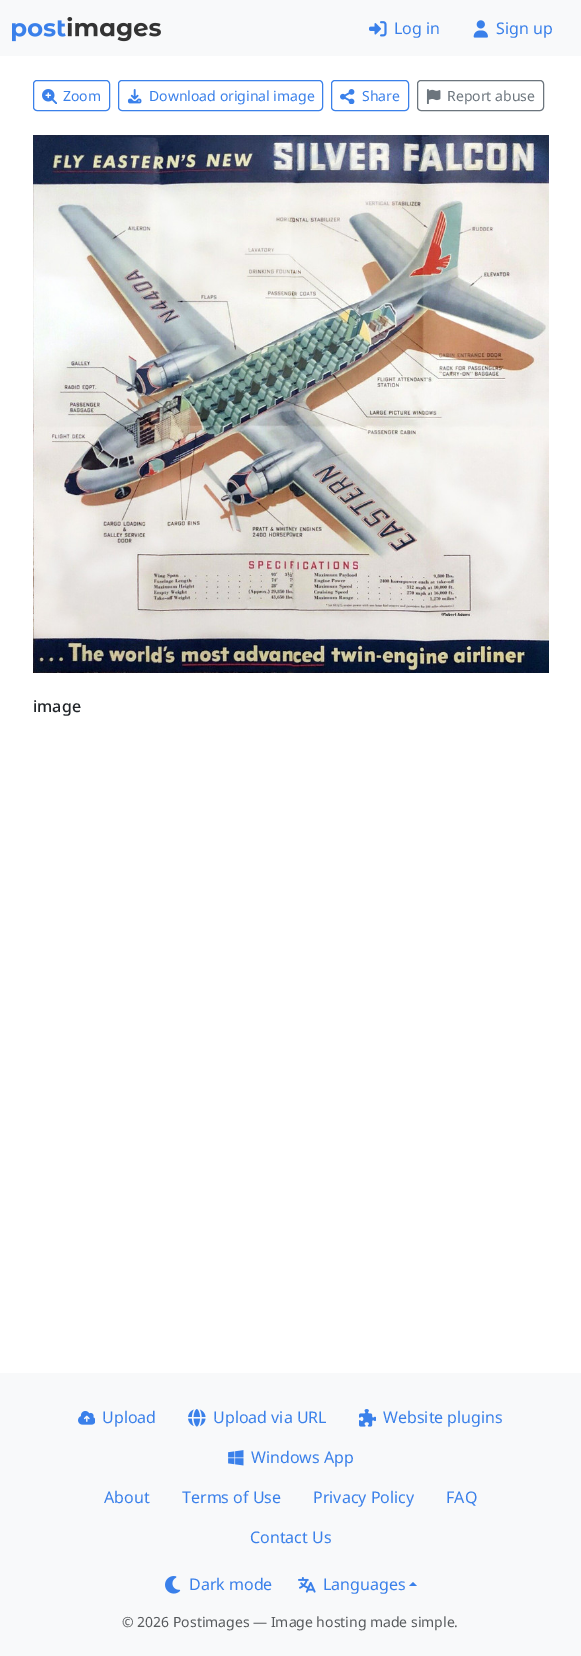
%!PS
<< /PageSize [581 1656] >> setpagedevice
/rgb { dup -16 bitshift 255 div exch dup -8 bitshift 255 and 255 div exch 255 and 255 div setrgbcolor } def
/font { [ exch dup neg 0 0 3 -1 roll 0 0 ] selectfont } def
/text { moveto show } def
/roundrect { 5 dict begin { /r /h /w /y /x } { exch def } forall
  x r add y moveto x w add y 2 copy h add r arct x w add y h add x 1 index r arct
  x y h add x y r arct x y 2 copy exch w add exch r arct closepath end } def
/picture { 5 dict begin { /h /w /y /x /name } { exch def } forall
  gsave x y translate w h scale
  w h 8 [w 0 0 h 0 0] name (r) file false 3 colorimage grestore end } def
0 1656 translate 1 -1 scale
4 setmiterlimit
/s1 { /NotoSans-Regular 16 font 16#3A80EA rgb } def
/s2 { /NotoSans-Regular 14 font 16#3A80EA rgb } def
/s3 { /NotoSans-Regular 14 font 16#6C757D rgb } def
/s4 { /NotoSans-Medium 16 font 16#212529 rgb } def
/s5 { /NotoSans-Regular 14 font 16#575A5D rgb } def
16#FFFFFF rgb
0 0 581 1656 rectfill
16#F8F9FA rgb
0 0 581 56 rectfill
(pic1.raw) 12 17 149 25 picture
(pic2.raw) 369 21 18 16 picture
s1
(Log in) 394 34 text
(pic3.raw) 473 20 15 18 picture
(Sign up) 496 34 text
33.5 80.5 76 30 3.5 roundrect stroke
(pic4.raw) 42 89 15 15 picture
s2
(Zoom) 63 101 text
118.5 80.5 204 30 3.5 roundrect stroke
(pic5.raw) 127 89 15 15 picture
(Download original image) 149 101 text
331.5 80.5 77 30 3.5 roundrect stroke
(pic6.raw) 340 89 15 15 picture
(Share) 362 101 text
16#6C757D rgb
417.5 80.5 126 30 3.5 roundrect stroke
(pic7.raw) 426 89 15 15 picture
(Report abuse) 447 101 text
(pic8.raw) 33 135 516 538 picture
s4
(image) 33 712 text
16#F8F9FA rgb
0 1373 581 283 rectfill
(pic9.raw) 78 1411 17 14 picture
s1
(Upload) 102 1423 text
(pic10.raw) 188 1409 18 18 picture
(Upload via URL) 213 1423 text
(pic11.raw) 359 1409 17 18 picture
(Website plugins) 383 1423 text
(pic12.raw) 228 1450 16 16 picture
(Windows App) 251 1463 text
(About) 104 1503 text
(Terms of Use) 182 1503 text
(Privacy Policy) 313 1503 text
(FAQ) 446 1503 text
(Contact Us) 250 1543 text
(pic13.raw) 165 1576 16 18 picture
(Dark mode) 189 1590 text
(pic14.raw) 298 1577 18 16 picture
(Languages) 323 1590 text
417 1586 moveto 409 1586 lineto 413 1582 lineto closepath fill
s5
(© 2026 Postimages — Image hosting made simple.) 122 1627 text
showpage
